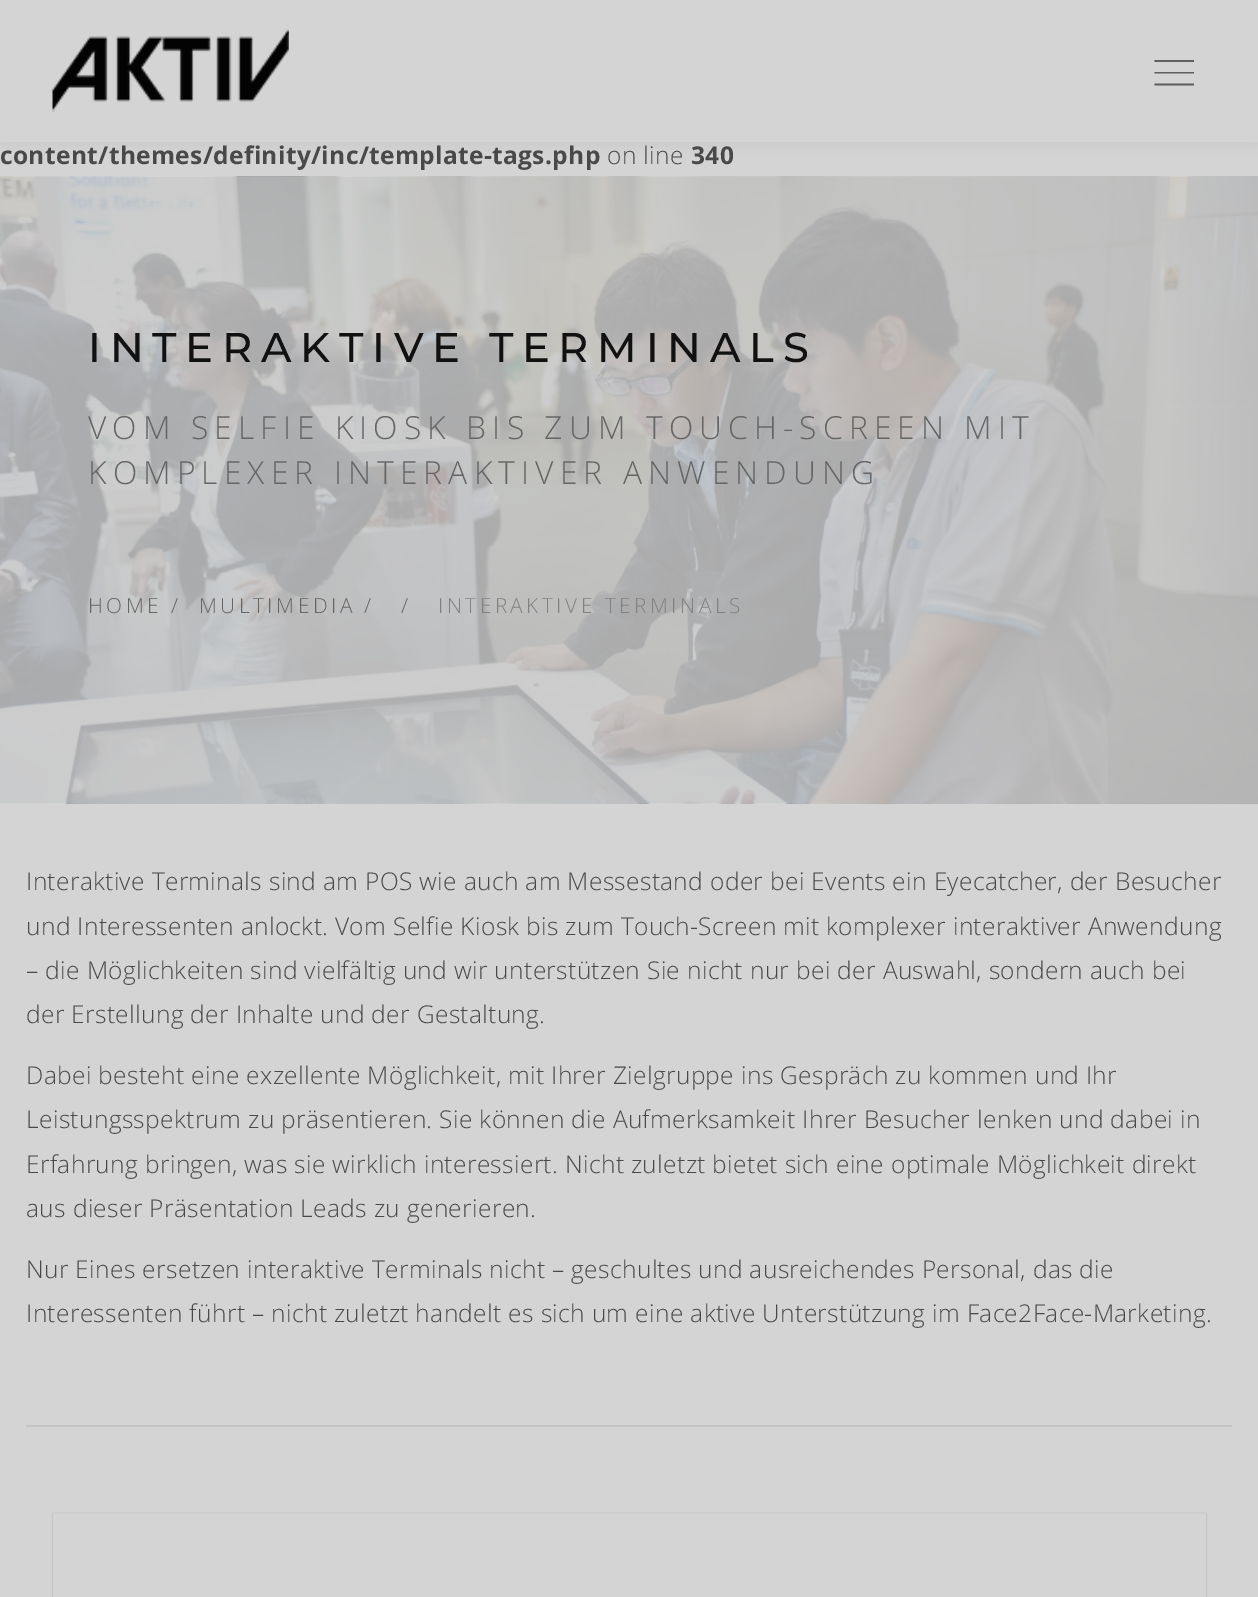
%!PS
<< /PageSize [1258 1597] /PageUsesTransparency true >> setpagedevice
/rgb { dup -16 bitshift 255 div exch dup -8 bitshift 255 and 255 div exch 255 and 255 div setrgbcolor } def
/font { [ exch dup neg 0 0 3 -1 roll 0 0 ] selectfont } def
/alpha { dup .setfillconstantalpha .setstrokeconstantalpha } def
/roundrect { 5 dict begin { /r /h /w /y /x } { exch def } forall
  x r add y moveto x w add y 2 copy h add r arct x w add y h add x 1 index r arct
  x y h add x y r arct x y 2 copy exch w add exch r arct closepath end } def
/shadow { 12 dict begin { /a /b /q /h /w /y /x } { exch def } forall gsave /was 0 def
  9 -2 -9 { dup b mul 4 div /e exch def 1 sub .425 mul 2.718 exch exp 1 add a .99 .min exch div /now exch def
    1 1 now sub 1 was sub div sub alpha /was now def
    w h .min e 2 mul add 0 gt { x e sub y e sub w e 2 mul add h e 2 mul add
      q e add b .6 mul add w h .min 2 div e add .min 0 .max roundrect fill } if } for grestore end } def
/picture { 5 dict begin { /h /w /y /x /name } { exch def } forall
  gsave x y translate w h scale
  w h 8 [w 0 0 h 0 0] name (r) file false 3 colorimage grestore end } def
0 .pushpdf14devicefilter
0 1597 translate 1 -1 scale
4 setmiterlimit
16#D4D4D4 rgb
0 0 1258 1597 rectfill
16#030303 rgb
0 2 1258 142 0 7 0.06 shadow
16#D4D4D4 rgb
0 0 1258 142 rectfill
(pic1.raw) 52 29 237 83 picture
16#5F5F5F rgb
1154.5 60 moveto 1154.5 62 lineto 1194 62 lineto 1194 60 lineto closepath 1154.5 72 moveto 1154.5 73.5 lineto 1194 73.5 lineto 1194 72 lineto closepath 1154.5 83.5 moveto 1154.5 85.5 lineto 1194 85.5 lineto 1194 83.5 lineto closepath fill
/OpenSans-Bold 24.5 font
16#494949 rgb
0 164 moveto 0.35 0 (content/themes/definity/inc/template-tags.php) ashow
/OpenSans-Light 24.5 font
607 164 moveto 0.35 0 (on line) ashow
/OpenSans-Bold 24.5 font
691 164 moveto 0.35 0 (340) ashow
(pic2.raw) 0 176 1258 628 picture
/Montserrat-Medium 41.6 font
16#111111 rgb
88 362 moveto 8.75 0 (INTERAKTIVE TERMINALS) ashow
/OpenSans-Light 31.85 font
16#656565 rgb
88 439 moveto 6.1 0 (VOM SELFIE KIOSK BIS ZUM TOUCH-SCREEN MIT) ashow
88 484 moveto 6.1 0 (KOMPLEXER INTERAKTIVER ANWENDUNG) ashow
/OpenSans-Light 20.8 font
88 613 moveto 3.5 0 (HOME /) ashow
199 613 moveto 3.5 0 (MULTIMEDIA /) ashow
401 613 moveto 3.5 0 (/) ashow
16#818181 rgb
438 613 moveto 3.5 0 (INTERAKTIVE TERMINALS) ashow
/OpenSans-Light 24.5 font
16#494949 rgb
26 890 moveto 0.35 0 (Interaktive Terminals sind am POS wie auch am Messestand oder bei Events ein Eyecatcher, der Besucher) ashow
26 935 moveto 0.35 0 (und Interessenten anlockt. Vom Selfie Kiosk bis zum Touch-Screen mit komplexer interaktiver Anwendung) ashow
26 979 moveto 0.35 0 (– die Möglichkeiten sind vielfältig und wir unterstützen Sie nicht nur bei der Auswahl, sondern auch bei) ashow
26 1023 moveto 0.35 0 (der Erstellung der Inhalte und der Gestaltung.) ashow
26 1084 moveto 0.35 0 (Dabei besteht eine exzellente Möglichkeit, mit Ihrer Zielgruppe ins Gespräch zu kommen und Ihr) ashow
26 1128 moveto 0.35 0 (Leistungsspektrum zu präsentieren. Sie können die Aufmerksamkeit Ihrer Besucher lenken und dabei in) ashow
26 1173 moveto 0.35 0 (Erfahrung bringen, was sie wirklich interessiert. Nicht zuletzt bietet sich eine optimale Möglichkeit direkt) ashow
26 1217 moveto 0.35 0 (aus dieser Präsentation Leads zu generieren.) ashow
26 1278 moveto 0.35 0 (Nur Eines ersetzen interaktive Terminals nicht – geschultes und ausreichendes Personal, das die) ashow
26 1322 moveto 0.35 0 (Interessenten führt – nicht zuletzt handelt es sich um eine aktive Unterstützung im Face2Face-Marketing.) ashow
16#C4C4C4 rgb
26 1425 1206 2 rectfill
16#030303 rgb
53 1514 1153 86 0 1 0.2 shadow
16#D4D4D4 rgb
53 1514 1153 83 rectfill
16#CECECE rgb
53 1512 1153 2 rectfill
.poppdf14devicefilter showpage
